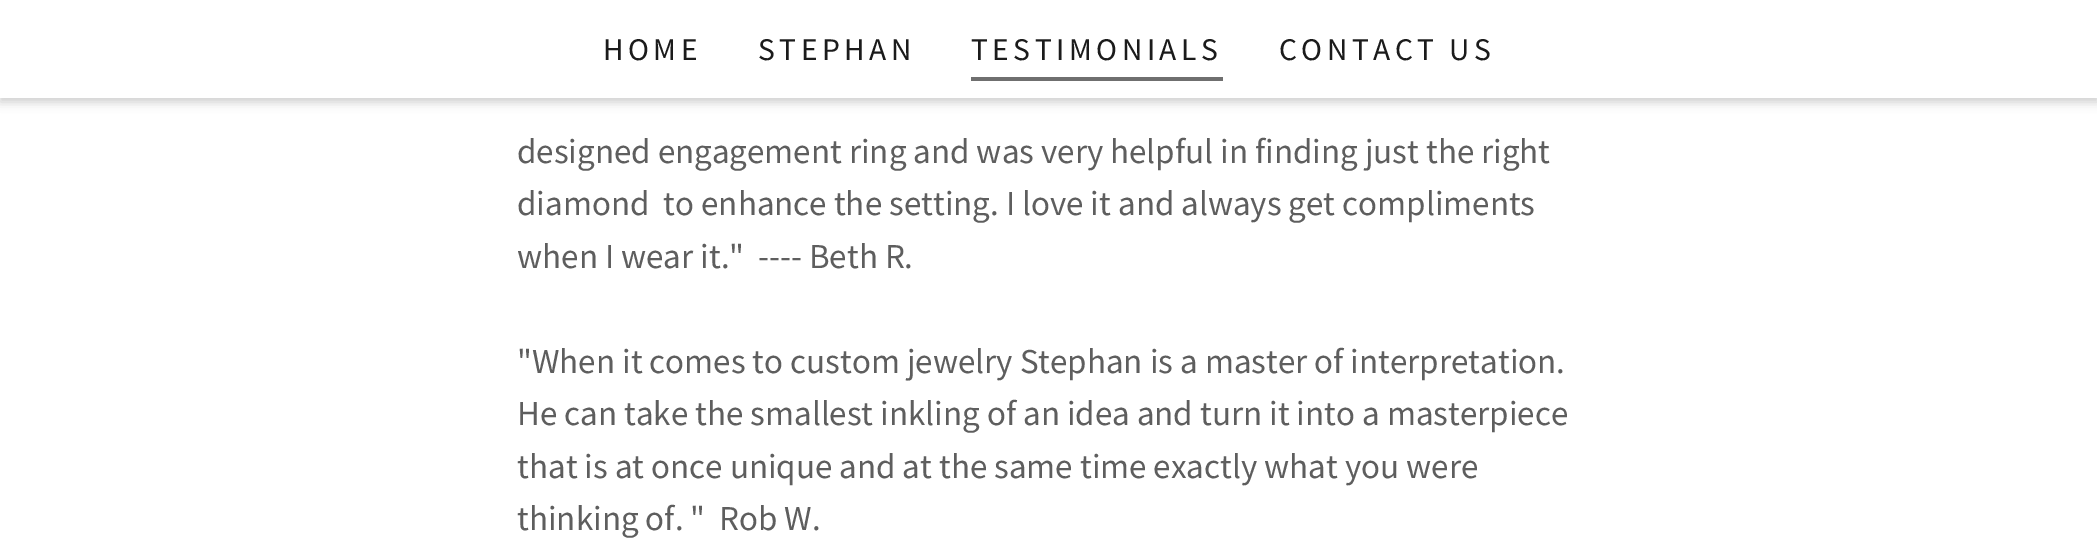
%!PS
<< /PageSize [2097 547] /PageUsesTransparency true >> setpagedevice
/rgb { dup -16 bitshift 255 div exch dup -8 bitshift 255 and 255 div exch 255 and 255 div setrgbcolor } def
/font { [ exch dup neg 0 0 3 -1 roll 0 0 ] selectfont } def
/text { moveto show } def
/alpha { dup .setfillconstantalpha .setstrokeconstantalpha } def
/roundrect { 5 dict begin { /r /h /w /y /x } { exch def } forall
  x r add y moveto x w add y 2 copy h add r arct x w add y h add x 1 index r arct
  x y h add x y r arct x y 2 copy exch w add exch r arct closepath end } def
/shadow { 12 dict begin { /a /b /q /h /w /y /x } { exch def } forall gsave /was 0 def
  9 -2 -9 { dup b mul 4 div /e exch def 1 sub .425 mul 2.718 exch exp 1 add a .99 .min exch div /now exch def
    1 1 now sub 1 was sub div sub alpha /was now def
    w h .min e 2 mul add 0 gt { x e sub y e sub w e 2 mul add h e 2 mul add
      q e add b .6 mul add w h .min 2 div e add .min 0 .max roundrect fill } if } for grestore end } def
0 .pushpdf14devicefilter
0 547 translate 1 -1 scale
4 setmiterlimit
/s1 { /SourceSansPro-Regular 35 font 16#5E5E5E rgb } def
16#FFFFFF rgb
0 0 2097 547 rectfill
16#000000 rgb
0 4 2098 98 0 5 0.2 shadow
16#FFFFFF rgb
0 0 2097 98 rectfill
/SourceSansPro-Regular 31.5 font
16#1B1B1B rgb
603 60 moveto 4.5 0 (HOME) ashow
758 60 moveto 4.5 0 (STEPHAN) ashow
16#6F6F6F rgb
971 77 252 4 rectfill
16#1B1B1B rgb
971 60 moveto 4.5 0 (TESTIMONIALS) ashow
1279 60 moveto 4.5 0 (CONTACT US) ashow
s1
(designed engagement ring and was very helpful in finding just the right) 517 163 text
(diamond  to enhance the setting. I love it and always get compliments) 517 215 text
(when I wear it."  ---- Beth R.) 517 268 text
("When it comes to custom jewelry Stephan is a master of interpretation.) 517 373 text
(He can take the smallest inkling of an idea and turn it into a masterpiece) 517 425 text
(that is at once unique and at the same time exactly what you were) 517 478 text
(thinking of. "  Rob W.) 517 530 text
.poppdf14devicefilter showpage
